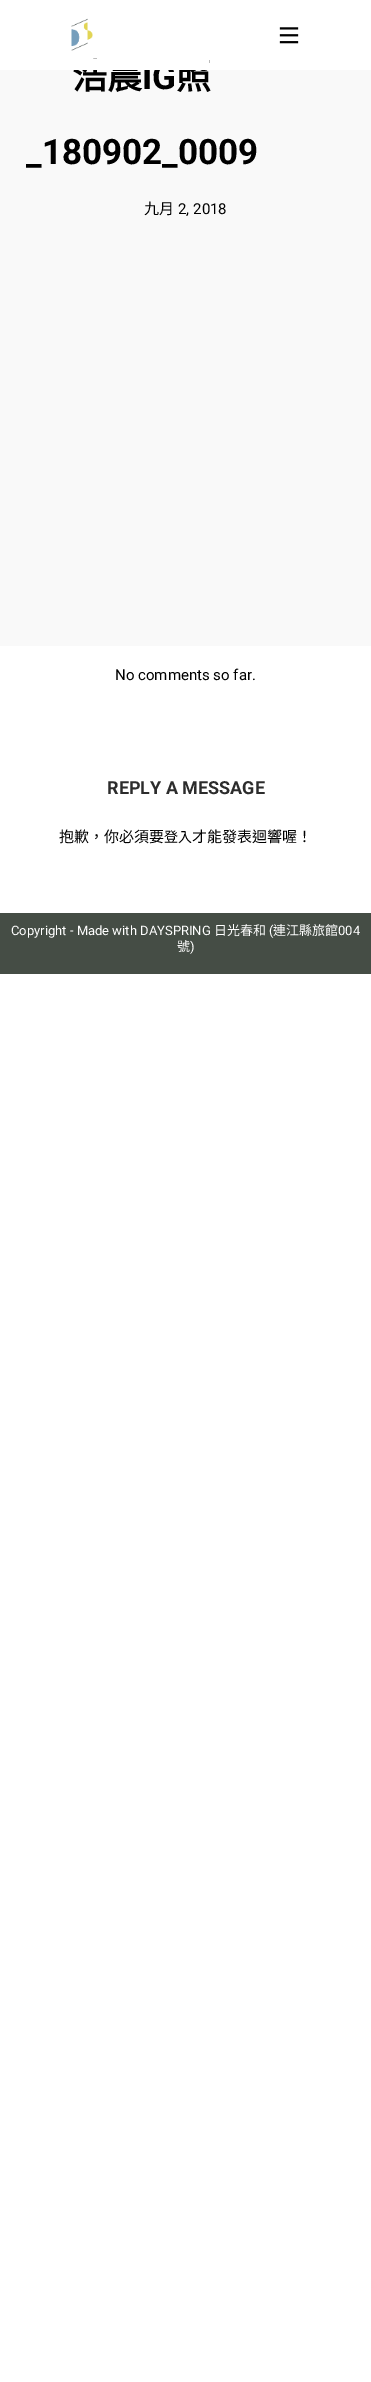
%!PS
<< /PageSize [371 2382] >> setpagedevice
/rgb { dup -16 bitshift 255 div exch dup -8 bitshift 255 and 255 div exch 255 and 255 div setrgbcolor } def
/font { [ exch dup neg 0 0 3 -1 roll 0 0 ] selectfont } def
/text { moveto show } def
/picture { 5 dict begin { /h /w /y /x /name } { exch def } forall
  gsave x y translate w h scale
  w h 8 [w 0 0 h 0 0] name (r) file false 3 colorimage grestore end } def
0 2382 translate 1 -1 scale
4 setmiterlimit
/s1 { /NotoSansCJKTC-Bold 35 font 16#000000 rgb } def
/s2 { /Roboto-Bold 35 font 16#000000 rgb } def
/s3 { /NotoSansCJKTC-Regular 15 font 16#000000 rgb } def
/s4 { /Roboto-Regular 15 font 16#000000 rgb } def
/s5 { /Roboto-Bold 18 font 16#2C2C2C rgb } def
/s6 { /NotoSansCJKTC-Regular 14 font 16#000000 rgb } def
/s7 { /Roboto-Regular 13 font 16#FFFFFF rgb } def
/s8 { /NotoSansCJKTC-Regular 13 font 16#FFFFFF rgb } def
16#FFFFFF rgb
0 0 371 2382 rectfill
(pic1.raw) 71 18 22 33 picture
(pic2.raw) 279 27 20 17 picture
16#F9F9F9 rgb
0 70 371 576 rectfill
s1
(浩晨) 72 89 text
s2
(IG) 142 89 text
s1
(照) 176 89 text
16#FFFFFF rgb
74 59 135 11 rectfill
s2
(_180902_0009) 26 164 text
s3
(九月) 144 214 text
s4
(2, 2018) 178 214 text
(No comments so far.) 115 680 text
s5
(REPLY A MESSAGE) 107 794 text
s3
(抱歉，你必須要) 59 842 text
s6
(登入) 164 842 text
s3
(才能發表迴響喔！) 192 842 text
16#454D45 rgb
0 913 371 61 rectfill
s7
(Copyright - Made with DAYSPRING) 11 935 text
s8
(日光春和) 214 935 text
s7
(\() 269 935 text
s8
(連江縣旅館) 273 935 text
s7
(004) 338 935 text
s8
(號) 177 951 text
s7
(\)) 190 951 text
showpage
